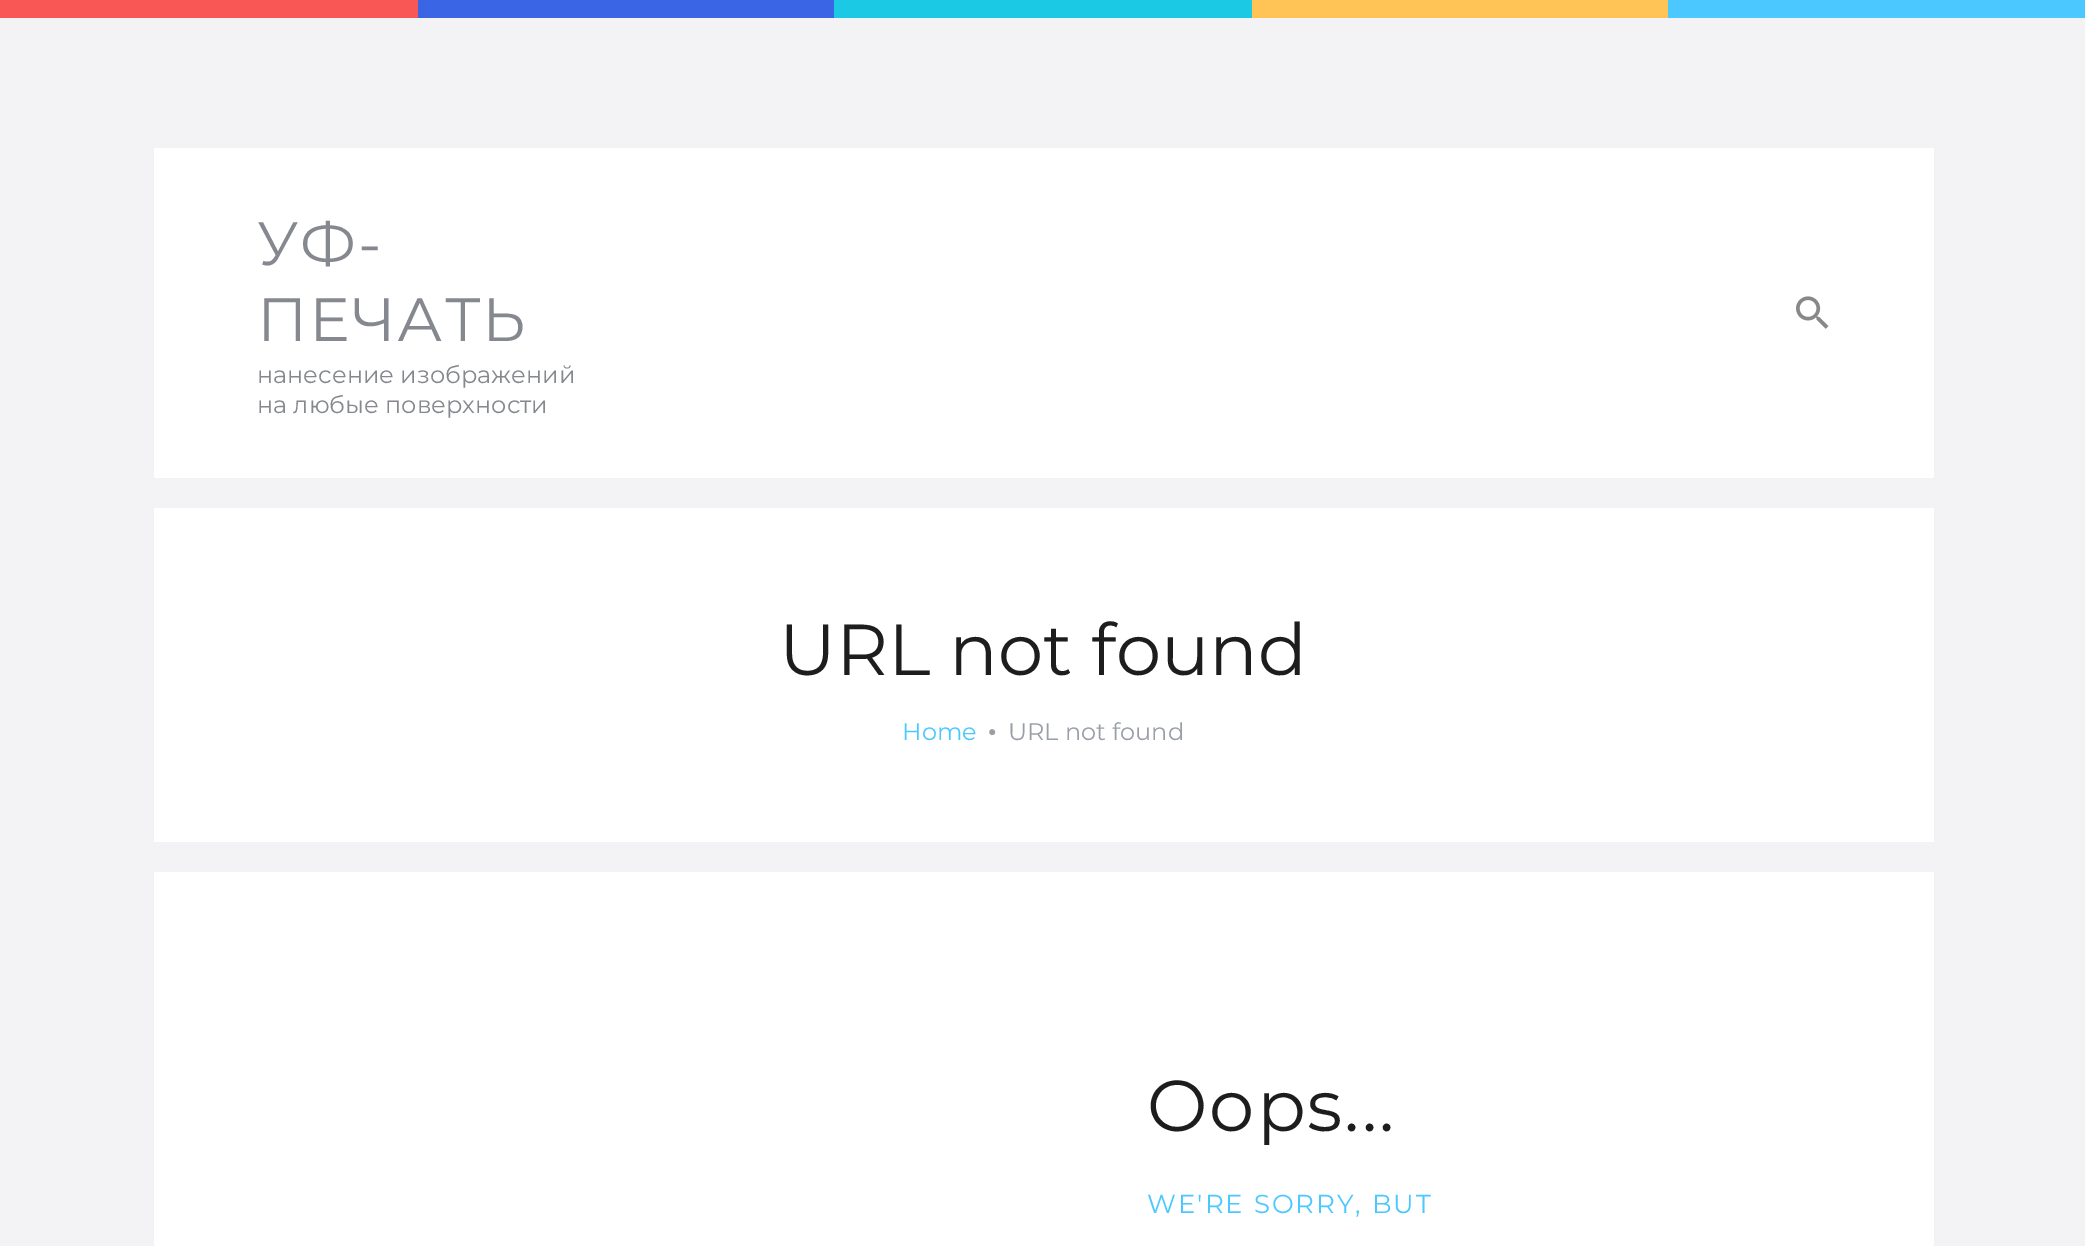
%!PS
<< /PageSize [2085 1246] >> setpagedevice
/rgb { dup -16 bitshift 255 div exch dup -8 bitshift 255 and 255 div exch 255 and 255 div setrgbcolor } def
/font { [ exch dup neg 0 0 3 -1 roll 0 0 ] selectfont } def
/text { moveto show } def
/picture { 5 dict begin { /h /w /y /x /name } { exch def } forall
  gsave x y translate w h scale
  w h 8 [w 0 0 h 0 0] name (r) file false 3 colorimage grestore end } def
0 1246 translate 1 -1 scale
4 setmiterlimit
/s1 { /Montserrat-Regular 24 font 16#86888F rgb } def
/s2 { /Montserrat-Regular 72 font 16#1D1D1D rgb } def
/s3 { /Montserrat-Regular 24 font 16#4AC8FF rgb } def
/s4 { /LiberationSans-Regular 14 font 16#9A9EA7 rgb } def
/s5 { /Montserrat-Regular 24 font 16#9A9EA7 rgb } def
16#F3F3F5 rgb
0 0 2085 1246 rectfill
16#F95656 rgb
0 0 418 18 rectfill
16#3A66E6 rgb
418 0 416 18 rectfill
16#1BC9E4 rgb
834 0 418 18 rectfill
16#FFC455 rgb
1252 0 416 18 rectfill
16#4AC8FF rgb
1668 0 417 18 rectfill
16#FFFFFF rgb
154 148 1780 330 rectfill
/Montserrat-Regular 61 font
16#86888F rgb
257 265 moveto 2 0 (УФ-) ashow
257 341 moveto 2 0 (ПЕЧАТЬ) ashow
s1
(нанесение изображений) 257 383 text
(на любые поверхности) 257 413 text
(pic1.raw) 1796 296 33 33 picture
16#FFFFFF rgb
154 508 1780 334 rectfill
s2
(URL not found) 779 675 text
s3
(Home) 902 740 text
s4
(●) 988 736 text
s5
(URL not found) 1008 740 text
16#FFFFFF rgb
154 872 1780 374 rectfill
/Montserrat-Regular 72 font
16#1D1D1D rgb
1147 1131 moveto 2 0 (Oops...) ashow
/Montserrat-Regular 26 font
16#4AC8FF rgb
1147 1213 moveto 2 0 (WE'RE SORRY, BUT) ashow
showpage
